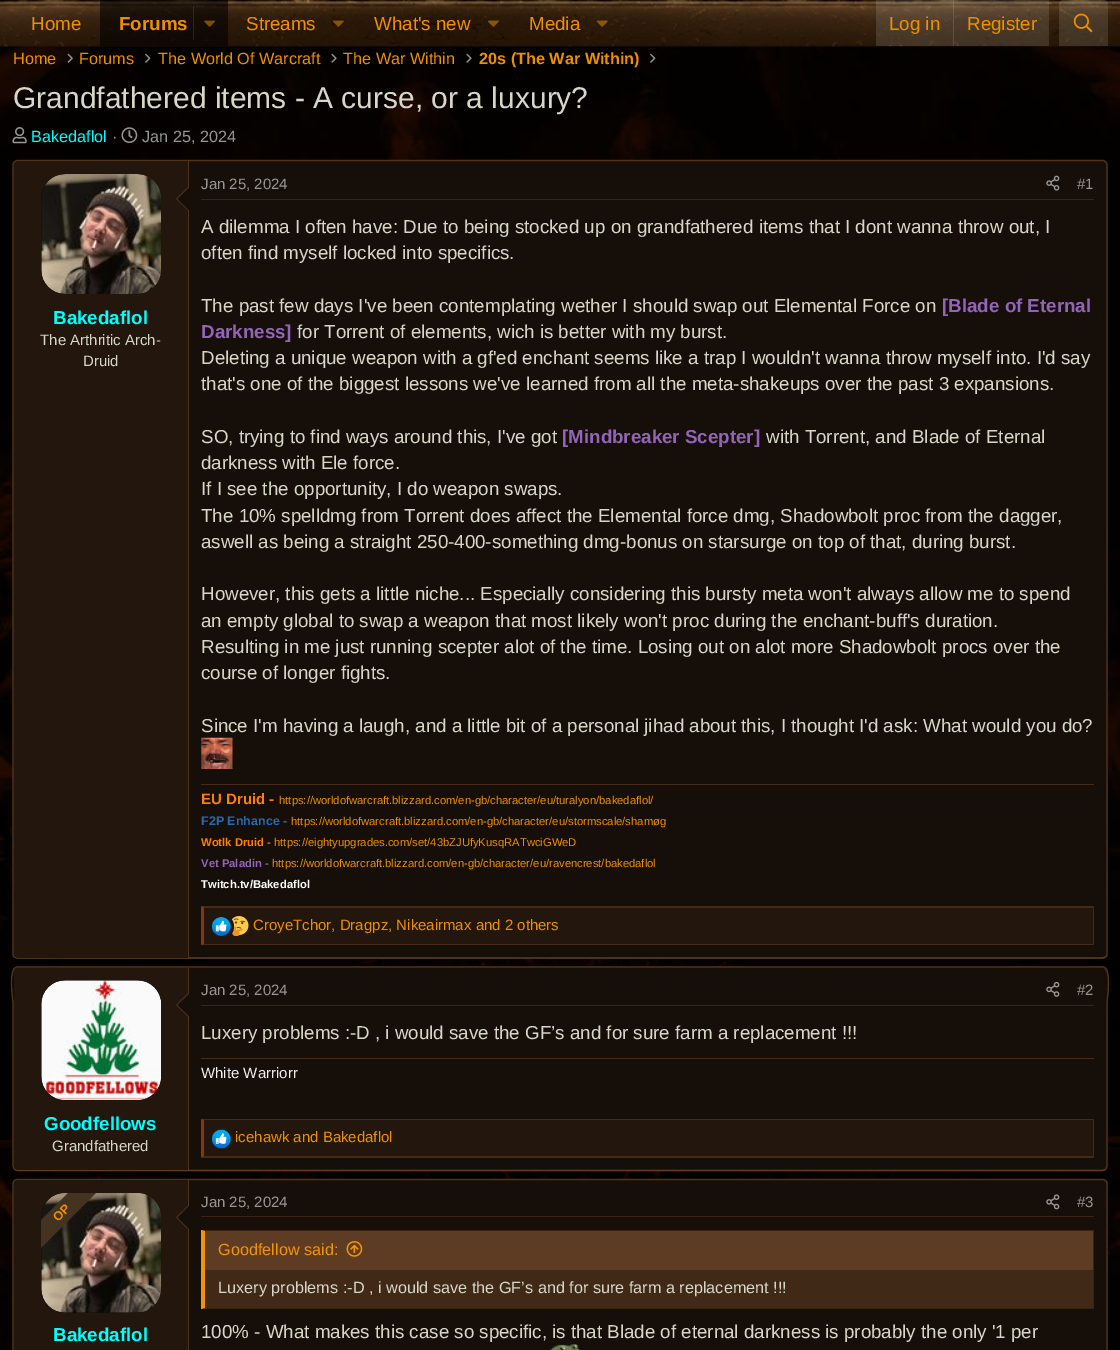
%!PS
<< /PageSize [1120 1350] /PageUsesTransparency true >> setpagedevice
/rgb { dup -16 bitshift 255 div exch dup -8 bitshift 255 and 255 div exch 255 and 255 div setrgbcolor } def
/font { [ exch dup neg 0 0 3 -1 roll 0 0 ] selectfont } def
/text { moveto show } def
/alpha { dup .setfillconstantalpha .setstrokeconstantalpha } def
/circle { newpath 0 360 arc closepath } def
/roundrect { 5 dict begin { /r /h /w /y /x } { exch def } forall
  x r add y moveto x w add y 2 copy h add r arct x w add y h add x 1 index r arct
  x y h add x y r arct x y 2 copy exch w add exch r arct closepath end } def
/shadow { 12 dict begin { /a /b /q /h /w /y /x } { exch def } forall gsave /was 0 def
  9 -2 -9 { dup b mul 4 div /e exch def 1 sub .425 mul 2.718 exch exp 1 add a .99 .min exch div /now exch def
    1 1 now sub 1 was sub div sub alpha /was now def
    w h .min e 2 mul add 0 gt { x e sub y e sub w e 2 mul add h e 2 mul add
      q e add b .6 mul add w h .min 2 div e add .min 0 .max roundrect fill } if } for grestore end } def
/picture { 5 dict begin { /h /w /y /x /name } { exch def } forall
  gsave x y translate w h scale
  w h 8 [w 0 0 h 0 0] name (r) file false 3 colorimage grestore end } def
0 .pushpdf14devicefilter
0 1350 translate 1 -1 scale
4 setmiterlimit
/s1 { /LiberationSans-Regular 18.75 font 16#EE8F00 rgb } def
/s2 { /LiberationSans-Bold 18.75 font 16#EE8F00 rgb } def
/s3 { /LiberationSans-Regular 16.25 font 16#EE8F00 rgb } def
/s4 { /LiberationSans-Bold 16.25 font 16#EE8F00 rgb } def
/s5 { /LiberationSans-Regular 30 font 16#D7D7C8 rgb } def
/s6 { /LiberationSans-Regular 16.25 font 16#00FFFF rgb } def
/s7 { /LiberationSans-Regular 16.25 font 16#969696 rgb } def
/s8 { /LiberationSans-Bold 18.75 font 16#00FFFF rgb } def
/s9 { /LiberationSans-Regular 15 font 16#D7D7C8 rgb } def
/s10 { /LiberationSans-Regular 15 font 16#969696 rgb } def
/s11 { /LiberationSans-Regular 18.75 font 16#D7D7C8 rgb } def
/s12 { /LiberationSans-Bold 18.75 font 16#9365B8 rgb } def
/s13 { /LiberationSans-Bold 15 font 16#FF8000 rgb } def
/s14 { /LiberationSans-Regular 11.25 font 16#EE8F00 rgb } def
/s15 { /LiberationSans-Bold 12.5 font 16#2969B0 rgb } def
/s16 { /LiberationSans-Bold 11.25 font 16#FF8000 rgb } def
/s17 { /LiberationSans-Bold 11.25 font 16#9365B8 rgb } def
/s18 { /LiberationSans-Bold 11.25 font 16#FFFFFF rgb } def
/s19 { /LiberationSans-Regular 15 font 16#EE8F00 rgb } def
/s20 { /LiberationSans-Regular 15 font 16#EFEFEF rgb } def
/s21 { /LiberationSans-Regular 16.25 font 16#F2930D rgb } def
/s22 { /LiberationSans-Regular 16.25 font 16#D7D7C8 rgb } def
16#FFFFFF rgb
0 0 1120 1350 rectfill
(pic1.raw) 0 46 1120 1304 picture
(pic8.raw) 67 53 6 10 picture
(pic9.raw) 145 53 6 10 picture
(pic10.raw) 331 53 6 10 picture
(pic11.raw) 466 53 6 10 picture
(pic12.raw) 650 53 6 10 picture
16#000000 rgb
-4 -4 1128 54 0 5 0.3 shadow
(pic2.raw) 0 0 1120 47 picture
s1
(Home) 31 30 text
0.59 alpha
16#000000 rgb
100 0 128 46 rectfill
1 alpha
s2
(Forums) 119 30 text
0.17 alpha
193 6 1 34 rectfill
1 alpha
(pic3.raw) 204 20 11 7 picture
s1
(Streams) 246 30 text
(pic4.raw) 333 20 11 7 picture
(What's new) 374 30 text
(pic5.raw) 488 20 11 7 picture
(Media) 529 30 text
(pic6.raw) 596 20 12 7 picture
0.15 alpha
16#D7D7C8 rgb
876 0 173 46 rectfill
1 alpha
s1
(Log in) 889 30 text
0.15 alpha
16#D7D7C8 rgb
953 0 1 46 rectfill
1 alpha
s1
(Register) 967 30 text
0.15 alpha
16#D7D7C8 rgb
1064 0 moveto 1103 0 lineto 1106 0 1108 2 1108 5 curveto 1108 46 lineto 1059 46 lineto 1059 5 lineto 1059 2 1061 0 1064 0 curveto closepath fill
1 alpha
(pic7.raw) 1073 13 20 20 picture
s3
(Home) 13 64 text
(Forums) 79 64 text
(The World Of Warcraft) 158 64 text
(The War Within) 343 64 text
s4
(20s \(The War Within\)) 479 64 text
s5
(Grandfathered items - A curse, or a luxury?) 13 108 text
(pic13.raw) 12 127 15 17 picture
s6
(Bakedaflol) 31 142 text
s7
(·) 112 142 text
(pic14.raw) 121 127 17 16 picture
(Jan 25, 2024) 142 142 text
16#160E08 rgb
13 160 1095 799 5 roundrect fill
16#613E23 rgb
1.2 setlinewidth
1105.5 957 moveto 1102.5 958 lineto 17.5 958 lineto 14.5 957 lineto stroke
16#4E321C rgb
14.5 957 moveto 13.5 956 13 955 13 954 curveto 13 165 lineto 13 164 13.5 162.5 14.5 162 curveto 15 161 16.5 160.5 17.5 160.5 curveto 1102.5 160.5 lineto 1103.5 160.5 1105 161 1105.5 162 curveto 1106.5 162.5 1107 164 1107 165 curveto 1107 954 lineto 1107 955 1106.5 956 1105.5 957 curveto stroke
16#23160D rgb
18 161 moveto 189 161 lineto 189 958 lineto 18 958 lineto 16 958 14 956 14 954 curveto 14 165 lineto 14 163 16 161 18 161 curveto closepath fill
16#4E321C rgb
188 161 1 797 rectfill
16#160E08 rgb
41 174 120 120 24 roundrect fill
(pic15.raw) 41 174 120 120 picture
16#4E321C rgb
189 186 moveto 189 211 lineto 176 199 lineto closepath fill
16#160E08 rgb
189 187.5 moveto 189 210 lineto 177.5 199 lineto closepath fill
s8
(Bakedaflol) 53 324 text
s9
(The Arthritic Arch-) 40 345 text
(Druid) 83 366 text
16#382314 rgb
201 199 893 1 rectfill
s10
(Jan 25, 2024) 201 189 text
(pic16.raw) 1046 175 14 16 picture
(#1) 1077 189 text
s11
(A dilemma I often have: Due to being stocked up on grandfathered items that I dont wanna throw out, I) 201 233 text
(often find myself locked into specifics.) 201 259 text
(The past few days I've been contemplating wether I should swap out Elemental Force on) 201 312 text
s12
([Blade of Eternal) 942 312 text
(Darkness]) 201 338 text
s11
(for Torrent of elements, wich is better with my burst.) 297 338 text
(Deleting a unique weapon with a gf'ed enchant seems like a trap I wouldn't wanna throw myself into. I'd say) 201 364 text
(that's one of the biggest lessons we've learned from all the meta-shakeups over the past 3 expansions.) 201 390 text
(SO, trying to find ways around this, I've got) 201 443 text
s12
([Mindbreaker Scepter]) 562 443 text
s11
(with Torrent, and Blade of Eternal) 766 443 text
(darkness with Ele force.) 201 469 text
(If I see the opportunity, I do weapon swaps.) 201 495 text
(The 10% spelldmg from Torrent does affect the Elemental force dmg, Shadowbolt proc from the dagger,) 201 522 text
(aswell as being a straight 250-400-something dmg-bonus on starsurge on top of that, during burst.) 201 548 text
(However, this gets a little niche... Especially considering this bursty meta won't always allow me to spend) 201 600 text
(an empty global to swap a weapon that most likely won't proc during the enchant-buff's duration.) 201 627 text
(Resulting in me just running scepter alot of the time. Losing out on alot more Shadowbolt procs over the) 201 653 text
(course of longer fights.) 201 679 text
(Since I'm having a laugh, and a little bit of a personal jihad about this, I thought I'd ask: What would you do?) 201 732 text
(pic17.raw) 201 737 32 32 picture
16#432B18 rgb
201 784 893 1 rectfill
s13
(EU Druid -) 201 804 text
s14
(https://worldofwarcraft.blizzard.com/en-gb/character/eu/turalyon/bakedaflol/) 279 804 text
s15
(F2P Enhance -) 201 825 text
s14
(https://worldofwarcraft.blizzard.com/en-gb/character/eu/stormscale/shamøg) 291 825 text
s16
(Wotlk Druid -) 201 846 text
s14
(https://eightyupgrades.com/set/43bZJUfyKusqRATwciGWeD) 274 846 text
s17
(Vet Paladin -) 201 867 text
s14
(https://worldofwarcraft.blizzard.com/en-gb/character/eu/ravencrest/bakedaflol) 272 867 text
s18
(Twitch.tv/Bakedaflol) 201 888 text
16#23160D rgb
204 908 889 36 rectfill
16#432B18 rgb
201 906 moveto 1094 906 lineto 1092 908 lineto 204 908 lineto closepath fill
1093 906 1 39 rectfill
1094 945 moveto 201 945 lineto 204 944 lineto 1092 944 lineto closepath fill
16#853900 rgb
201 945 moveto 201 906 lineto 204 907.5 lineto 204 944 lineto closepath fill
(pic19.raw) 231 916 18 20 picture
16#23160D rgb
221.5 926.5 12.5 circle fill
(pic18.raw) 212 917 19 19 picture
s19
(CroyeTchor, Dragpz, Nikeairmax and 2 others) 253 930 text
16#160E08 rgb
13 966 1095 205 5 roundrect fill
16#613E23 rgb
1105.5 1169.5 moveto 1102.5 1170.5 lineto 17.5 1170.5 lineto 14.5 1169.5 lineto stroke
16#4E321C rgb
14.5 1169.5 moveto 13 1166 lineto 13 1004 lineto 13 999 7.5 967 17.5 967 curveto 1102.5 967 lineto 1112.5 967 1107 999 1107 1004 curveto 1107 1166 lineto 1105.5 1169.5 lineto stroke
16#23160D rgb
18 968 moveto 189 968 lineto 189 1170 lineto 18 1170 lineto 16 1170 14 1168 14 1166 curveto 14 972 lineto 14 970 16 968 18 968 curveto closepath fill
16#4E321C rgb
188 968 1 202 rectfill
16#160E08 rgb
41 980 120 120 24 roundrect fill
(pic20.raw) 41 980 120 120 picture
16#4E321C rgb
189 992.5 moveto 189 1017.5 lineto 176 1005 lineto closepath fill
16#160E08 rgb
189 994 moveto 189 1016 lineto 177.5 1005 lineto closepath fill
s8
(Goodfellows) 44 1130 text
s9
(Grandfathered) 52 1151 text
16#382314 rgb
201 1005 893 1 rectfill
s10
(Jan 25, 2024) 201 995 text
(pic21.raw) 1046 981 14 16 picture
(#2) 1077 995 text
s11
(Luxery problems :-D , i would save the GF’s and for sure farm a replacement !!!) 201 1039 text
16#432B18 rgb
201 1058 893 1 rectfill
s20
(White Warriorr) 201 1078 text
16#23160D rgb
204 1120 889 36 rectfill
16#432B18 rgb
201 1119 moveto 1094 1119 lineto 1092 1120 lineto 204 1120 lineto closepath fill
1093 1119 1 39 rectfill
1094 1158 moveto 201 1158 lineto 204 1156 lineto 1092 1156 lineto closepath fill
16#853900 rgb
201 1157.5 moveto 201 1119 lineto 204 1120 lineto 204 1156 lineto closepath fill
(pic22.raw) 212 1129 19 20 picture
s19
(icehawk and Bakedaflol) 235 1142 text
16#160E08 rgb
13 1179 1095 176 5 roundrect fill
16#4E321C rgb
14.5 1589.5 moveto 13.5 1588.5 13 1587.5 13 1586 curveto 13 1184 lineto 13 1182.5 13.5 1181.5 14.5 1180.5 curveto 15 1180 16.5 1179.5 17.5 1179.5 curveto 1102.5 1179.5 lineto 1103.5 1179.5 1105 1180 1105.5 1180.5 curveto 1106.5 1181.5 1107 1182.5 1107 1184 curveto 1107 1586 lineto 1107 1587.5 1106.5 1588.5 1105.5 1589.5 curveto stroke
16#23160D rgb
18 1180 moveto 189 1180 lineto 189 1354 lineto 18 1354 lineto 16 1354 14 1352 14 1350 curveto 14 1184 lineto 14 1182 16 1180 18 1180 curveto closepath fill
16#4E321C rgb
188 1180 1 170 rectfill
16#160E08 rgb
41 1193 120 120 24 roundrect fill
(pic23.raw) 41 1193 120 120 picture
gsave
41 1193 60 60 rectclip
16#443321 rgb
27 1234 moveto 82 1179 lineto 96 1193 lineto 41 1248 lineto closepath fill
grestore
/LiberationSans-Bold 12.5 font
16#EE8F00 rgb
gsave 58 1222 translate -45 rotate 0 0 moveto (OP) show grestore
16#4E321C rgb
189 1205 moveto 189 1230 lineto 176 1217.5 lineto closepath fill
16#160E08 rgb
189 1206 moveto 189 1229 lineto 177.5 1217.5 lineto closepath fill
s8
(Bakedaflol) 53 1341 text
16#382314 rgb
201 1216 893 1 rectfill
s10
(Jan 25, 2024) 201 1207 text
(pic24.raw) 1046 1194 14 16 picture
(#3) 1077 1207 text
16#412918 rgb
205 1270 888 38 rectfill
16#382314 rgb
201 1230 moveto 1094 1230 lineto 1092 1231 lineto 205 1231 lineto closepath fill
1093 1230 1 79 rectfill
1094 1309 moveto 201 1309 lineto 205 1308 lineto 1092 1308 lineto closepath fill
16#F2930D rgb
201 1309 moveto 201 1230 lineto 205 1231 lineto 205 1308 lineto closepath fill
16#5E3C23 rgb
205 1231 888 39 rectfill
s21
(Goodfellow said:) 218 1255 text
(pic25.raw) 346 1241 17 16 picture
s22
(Luxery problems :-D , i would save the GF’s and for sure farm a replacement !!!) 218 1293 text
s11
(100% - What makes this case so specific, is that Blade of eternal darkness is probably the only '1 per) 201 1338 text
(pic26.raw) 550 1344 30 6 picture
.poppdf14devicefilter showpage
